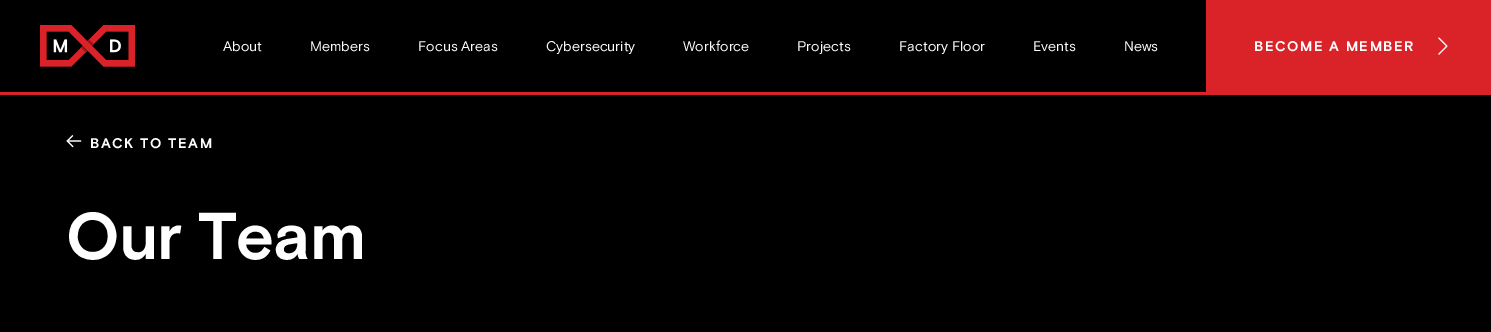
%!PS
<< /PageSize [1491 332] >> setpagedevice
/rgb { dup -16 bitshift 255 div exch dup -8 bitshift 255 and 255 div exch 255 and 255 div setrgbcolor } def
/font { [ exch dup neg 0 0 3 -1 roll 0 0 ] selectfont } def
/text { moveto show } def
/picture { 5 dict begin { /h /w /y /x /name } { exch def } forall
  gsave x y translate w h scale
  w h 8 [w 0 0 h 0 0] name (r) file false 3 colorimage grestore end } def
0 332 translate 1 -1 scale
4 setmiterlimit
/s1 { /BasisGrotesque-Regular 14 font 16#FFFFFF rgb } def
16#000000 rgb
0 0 1491 332 rectfill
16#DA2328 rgb
0 92 1491 3 rectfill
(pic1.raw) 40 25 95 42 picture
s1
(About) 223 51 text
(Members) 310 51 text
(Focus Areas) 418 51 text
(Cybersecurity) 546 51 text
(Workforce) 683 51 text
(Projects) 797 51 text
(Factory Floor) 899 51 text
(Events) 1033 51 text
(News) 1124 51 text
16#DA2328 rgb
1206 0 285 92 rectfill
/BasisGrotesque-Bold 14 font
16#FFFFFF rgb
1254 51 moveto 1.5 0 (BECOME A MEMBER) ashow
(pic2.raw) 1438 37 10 18 picture
(pic3.raw) 66 135 16 13 picture
90 148 moveto 1.5 0 (BACK TO TEAM) ashow
/BasisGrotesque-Bold 66 font
66 259 moveto -1 0 (Our Team) ashow
showpage
